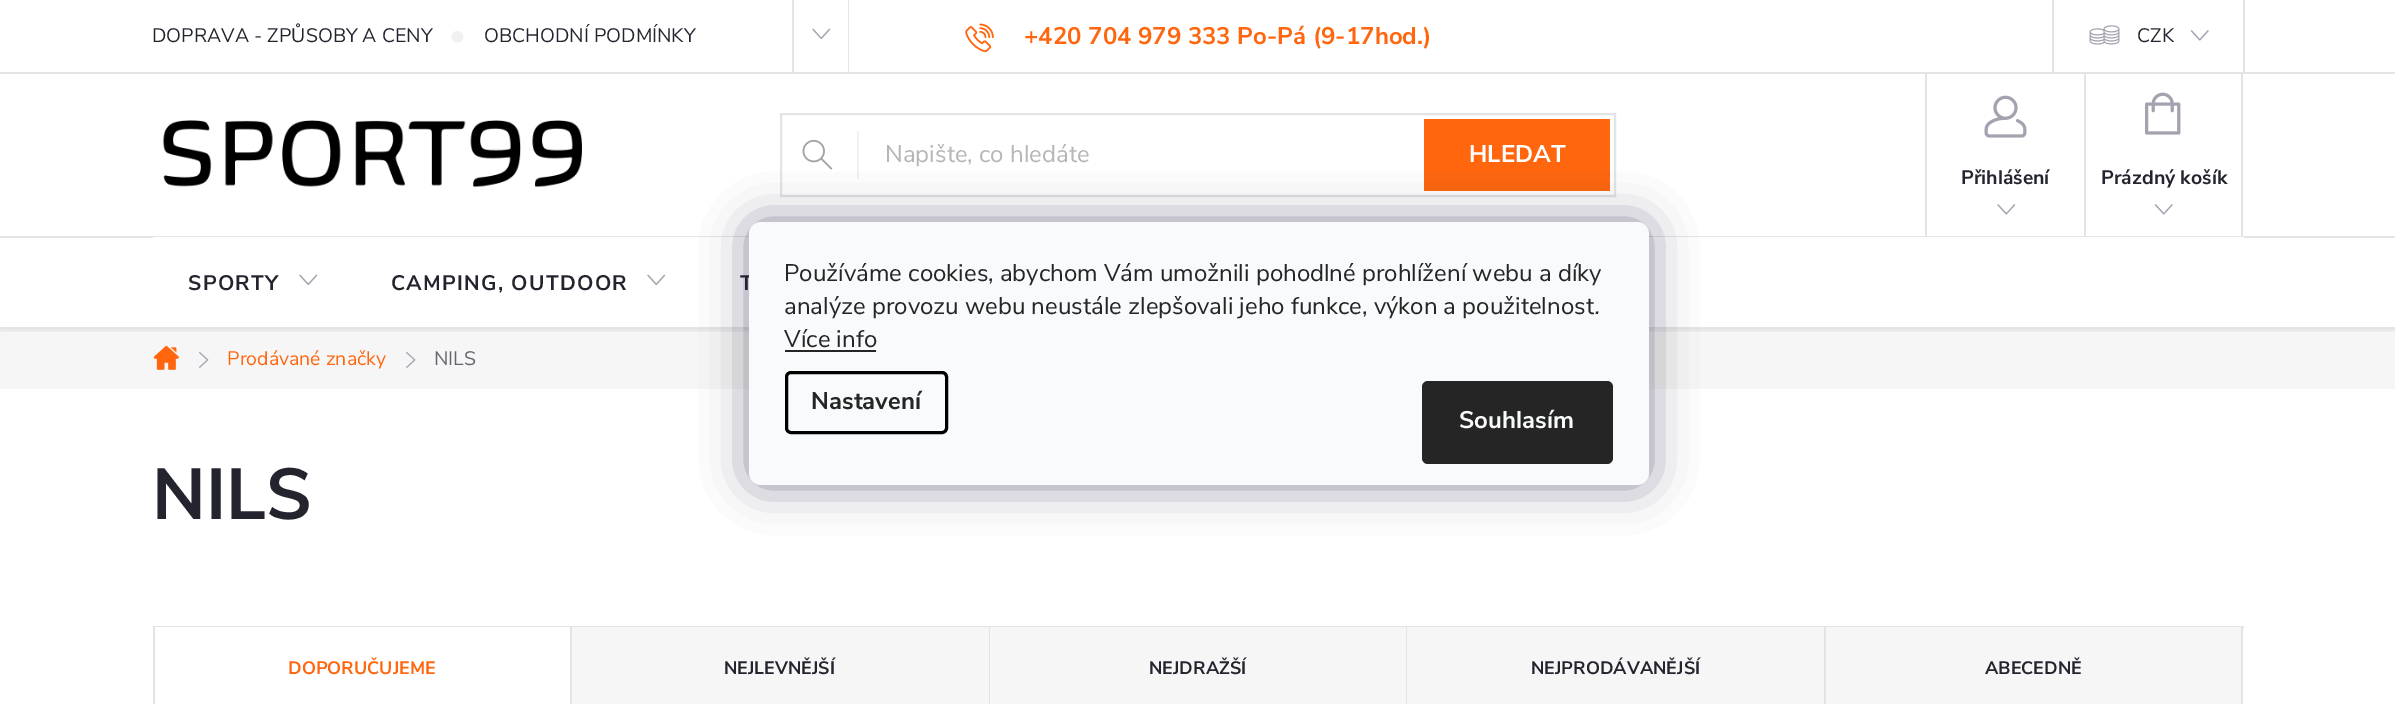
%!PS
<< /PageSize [2395 704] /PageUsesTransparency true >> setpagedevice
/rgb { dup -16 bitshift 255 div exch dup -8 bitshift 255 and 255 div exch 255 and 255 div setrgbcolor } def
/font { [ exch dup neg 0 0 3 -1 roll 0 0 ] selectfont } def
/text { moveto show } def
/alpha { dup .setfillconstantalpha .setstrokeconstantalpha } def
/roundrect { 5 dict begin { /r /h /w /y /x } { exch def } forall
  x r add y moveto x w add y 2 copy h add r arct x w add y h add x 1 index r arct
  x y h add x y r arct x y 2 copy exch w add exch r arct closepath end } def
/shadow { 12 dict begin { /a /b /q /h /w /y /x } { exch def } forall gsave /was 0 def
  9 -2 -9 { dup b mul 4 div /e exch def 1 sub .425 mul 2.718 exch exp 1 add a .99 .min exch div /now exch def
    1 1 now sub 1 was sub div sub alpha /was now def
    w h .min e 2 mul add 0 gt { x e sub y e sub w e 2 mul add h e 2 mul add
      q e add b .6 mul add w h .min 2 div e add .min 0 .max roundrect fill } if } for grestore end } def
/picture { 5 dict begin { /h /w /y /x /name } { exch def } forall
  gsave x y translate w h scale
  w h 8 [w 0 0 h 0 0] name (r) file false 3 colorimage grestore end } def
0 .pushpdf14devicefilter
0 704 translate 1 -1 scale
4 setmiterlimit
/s1 { /NunitoSans-Regular 19.5 font 16#24242E rgb } def
/s2 { /NunitoSans-Bold 24 font 16#FF660E rgb } def
/s3 { /NunitoSans-Regular 24 font 16#B6B6B6 rgb } def
/s4 { /NunitoSans-Bold 24 font 16#FFFFFF rgb } def
/s5 { /NunitoSans-Bold 19.5 font 16#24242E rgb } def
/s6 { /NunitoSans-Regular 19.5 font 16#FF660E rgb } def
/s7 { /NunitoSans-Regular 19.5 font 16#656570 rgb } def
/s8 { /NunitoSans-Bold 72 font 16#24242E rgb } def
/s9 { /NunitoSans-Bold 18 font 16#FF660E rgb } def
/s10 { /NunitoSans-Bold 18 font 16#24242E rgb } def
/s11 { /NunitoSans-Regular 24 font 16#252525 rgb } def
/s12 { /NunitoSans-Italic 24 font 16#252525 rgb } def
/s13 { /NunitoSans-Bold 24 font 16#252525 rgb } def
/s14 { /NunitoSans-Bold 24 font 16#F8FAFB rgb } def
16#FFFFFF rgb
0 0 2395 704 rectfill
16#E4E4E4 rgb
0 72 2395 2 rectfill
s1
(DOPRAVA - ZPŮSOBY A CENY) 152 42 text
(pic1.raw) 451 31 13 12 picture
(OBCHODNÍ PODMÍNKY) 484 42 text
16#E4E4E4 rgb
848 0 1 72 rectfill
792 0 2 72 rectfill
(pic2.raw) 812 28 19 11 picture
(pic3.raw) 965 23 29 30 picture
s2
(+420 704 979 333 Po-Pá \(9-17hod.\)) 1024 44 text
16#E4E4E4 rgb
2243 0 2 72 rectfill
2052 0 2 72 rectfill
(pic4.raw) 2089 25 31 20 picture
s1
(CZK) 2137 42 text
(pic5.raw) 2190 30 19 11 picture
(pic6.raw) 163 120 419 68 picture
16#E4E4E4 rgb
2 setlinewidth
781 114 834 82 rectstroke
16#F1F1F1 rgb
857 131 2 48 rectfill
(pic7.raw) 802 139 31 31 picture
s3
(Napište, co hledáte) 885 162 text
16#FF660E rgb
1424 119 186 72 rectfill
s4
(HLEDAT) 1469 162 text
16#E4E4E4 rgb
1925 74 2 162 rectfill
(pic8.raw) 1984 95 43 43 picture
s5
(Přihlášení) 1961 184 text
(pic9.raw) 1997 204 19 11 picture
16#E4E4E4 rgb
2241 74 2 162 rectfill
2084 74 2 162 rectfill
(pic10.raw) 2145 92 36 43 picture
s5
(Prázdný košík) 2101 184 text
(pic5.raw) 2154 204 19 11 picture
16#F6F6F6 rgb
0 329 2395 60 rectfill
gsave
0 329 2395 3 rectclip
16#000000 rgb
0 239 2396 93 0 1.5 0.05 shadow
grestore
16#E4E4E4 rgb
0 236 2395 2 rectfill
16#FFFFFF rgb
153 237 2091 1 rectfill
/NunitoSans-Bold 21 font
16#24242E rgb
188 290 moveto 1.25 0 (SPORTY) ashow
(pic2.raw) 299 274 19 11 picture
391 290 moveto 1.25 0 (CAMPING, OUTDOOR) ashow
(pic2.raw) 647 274 19 11 picture
740 290 moveto 1.25 0 (T) ashow
16#E4E4E4 rgb
0 327 2395 2 rectfill
(pic11.raw) 153 345 26 25 picture
(pic12.raw) 199 352 10 16 picture
s6
(Prodávané značky) 227 365 text
(pic13.raw) 406 352 10 16 picture
s7
(NILS) 434 365 text
s8
(NILS) 152 519 text
16#E4E4E4 rgb
153 626 2091 2 rectfill
153 626 2 78 rectfill
16#FFFFFF rgb
155 627 415 1 rectfill
16#E4E4E4 rgb
570 627 2 77 rectfill
s9
(DOPORUČUJEME) 288 674 text
16#F6F6F6 rgb
572 627 417 77 rectfill
16#E4E4E4 rgb
989 627 1 77 rectfill
s10
(NEJLEVNĚJŠÍ) 724 674 text
16#F6F6F6 rgb
990 627 416 77 rectfill
16#E4E4E4 rgb
1406 627 1 77 rectfill
s10
(NEJDRAŽŠÍ) 1149 674 text
16#F6F6F6 rgb
1407 627 417 77 rectfill
16#E4E4E4 rgb
1824 627 2 77 rectfill
s10
(NEJPRODÁVANĚJŠÍ) 1531 674 text
16#F6F6F6 rgb
1826 627 415 77 rectfill
16#E4E4E4 rgb
2241 627 2 77 rectfill
s10
(ABECEDNĚ) 1985 674 text
16#1B1939 rgb
749 222 900 263 12 22.5 0.5 shadow
16#F8FAFB rgb
749 222 900 263 12 roundrect fill
s11
(Používáme cookies, abychom Vám umožnili pohodlné prohlížení webu a díky) 784 281 text
(analýze provozu webu neustále zlepšovali jeho funkce, výkon a použitelnost) 784 314 text
s12
(.) 1594 314 text
s11
(Více info) 784 347 text
785 350 91 2 rectfill
16#000000 rgb
3 setlinewidth
786.5 372.5 160 60 4.5 roundrect stroke
s13
(Nastavení) 811 409 text
1422 381 191 83 6 roundrect fill
s14
(Souhlasím) 1459 428 text
.poppdf14devicefilter showpage
